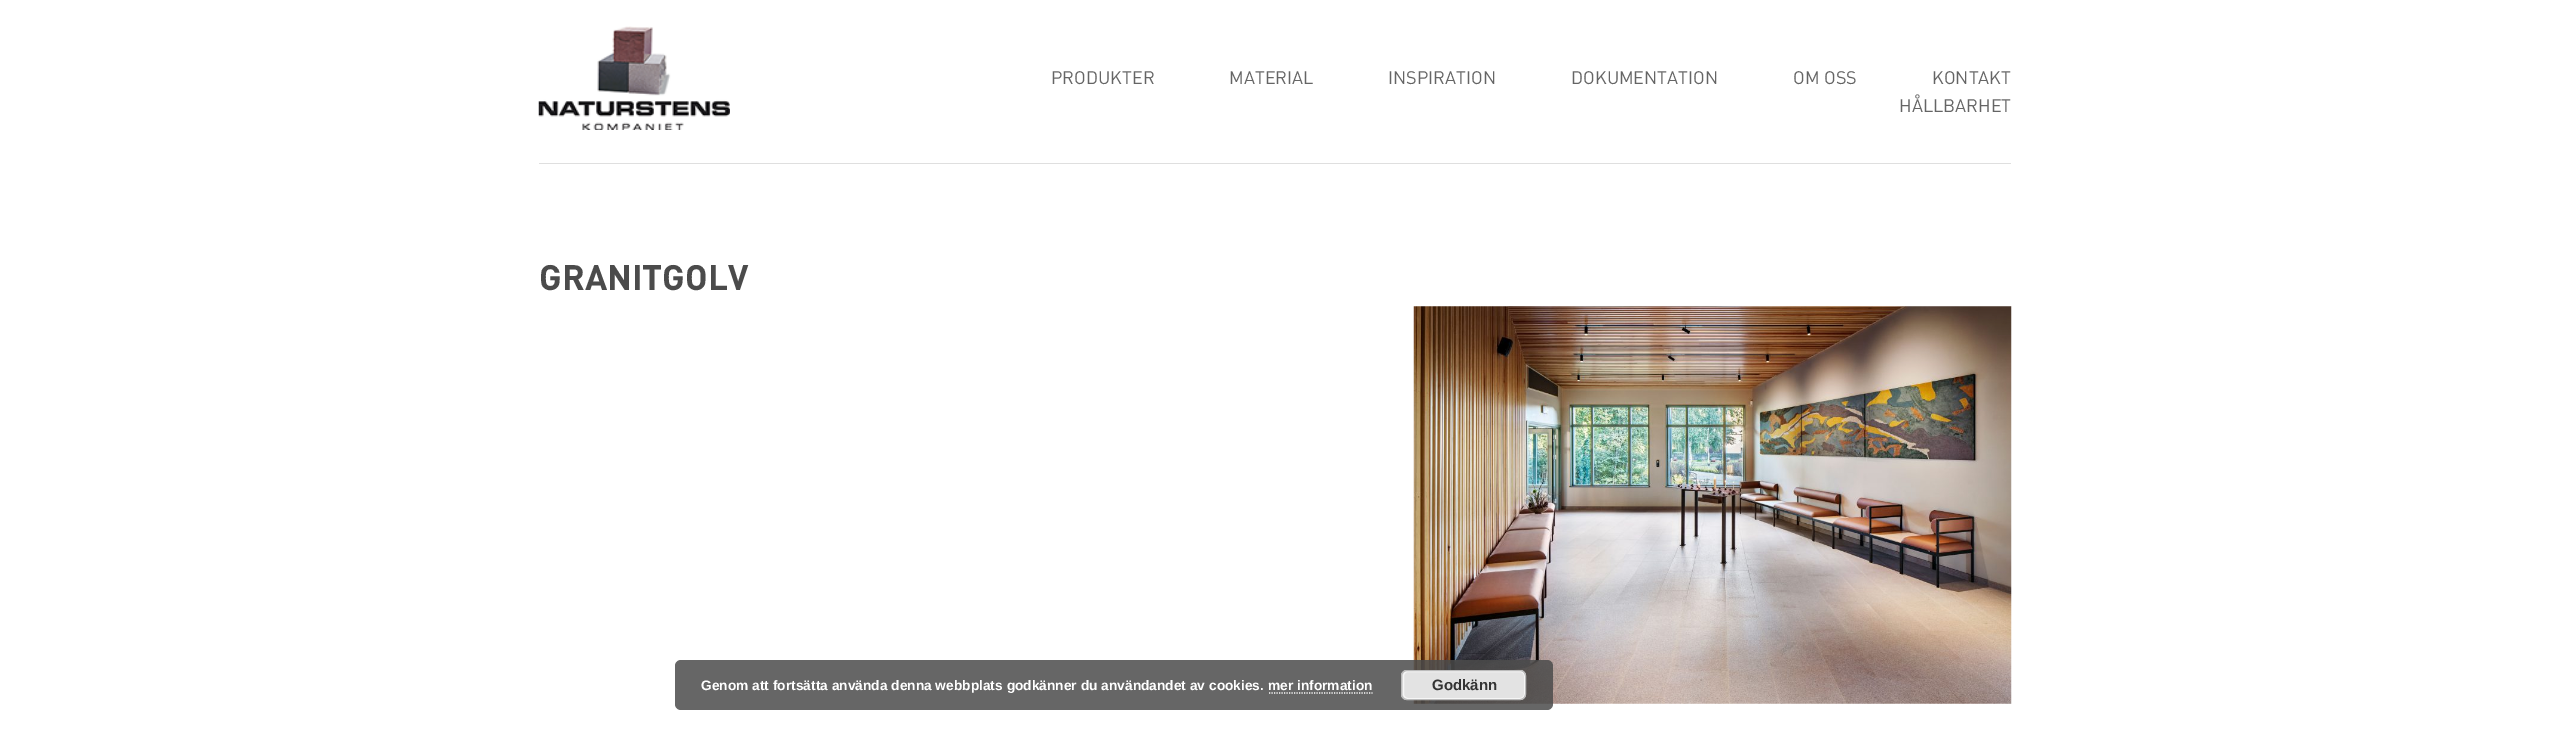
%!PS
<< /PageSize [2550 747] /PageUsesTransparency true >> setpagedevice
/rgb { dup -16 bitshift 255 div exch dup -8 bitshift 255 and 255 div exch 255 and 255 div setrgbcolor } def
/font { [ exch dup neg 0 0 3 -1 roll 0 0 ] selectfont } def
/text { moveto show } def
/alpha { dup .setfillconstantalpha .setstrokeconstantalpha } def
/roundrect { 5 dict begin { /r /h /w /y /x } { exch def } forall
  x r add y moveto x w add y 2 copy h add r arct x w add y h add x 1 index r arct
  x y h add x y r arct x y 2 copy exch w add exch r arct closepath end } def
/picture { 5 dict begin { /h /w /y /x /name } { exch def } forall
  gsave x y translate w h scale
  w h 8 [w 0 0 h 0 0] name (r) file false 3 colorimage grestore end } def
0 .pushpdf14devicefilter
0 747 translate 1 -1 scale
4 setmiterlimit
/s1 { /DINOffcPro-Regular 18 font 16#656565 rgb } def
/s2 { /DINOffcPro-Bold 35 font 16#4B4B4B rgb } def
/s3 { /LiberationSans-Bold 13.75 font 16#FFFFFF rgb } def
/s4 { /LiberationSans-Bold 15 font 16#333333 rgb } def
16#FFFFFF rgb
0 0 2550 747 rectfill
(pic1.raw) 538 26 192 104 picture
s1
(PRODUKTER) 1051 84 text
(MATERIAL) 1229 84 text
(INSPIRATION) 1388 84 text
(DOKUMENTATION) 1571 84 text
(OM OSS) 1793 84 text
(KONTAKT) 1932 84 text
(HÅLLBARHET) 1899 112 text
16#DFDFDF rgb
539 163 1472 1 rectfill
s2
(GRANITGOLV) 539 290 text
(pic2.raw) 1413 306 599 398 picture
0.85 alpha
675 660 878 50 6 roundrect fill
1 alpha
s3
(Genom att fortsätta använda denna webbplats godkänner du användandet av cookies. mer information) 701 690 text
16#E3E3E3 rgb
1401 670 125 30 6 roundrect fill
16#F6F6F6 rgb
1403.5 671.5 121 27 4.5 roundrect stroke
16#BBBBBB rgb
1401.5 670.5 124 29 5.5 roundrect stroke
s4
(Godkänn) 1432 690 text
16#FFFFFF rgb
1.2 setlinewidth
[1.25 1.25] 0 setdash
1269 693 moveto 1372.5 693 lineto stroke
.poppdf14devicefilter showpage
